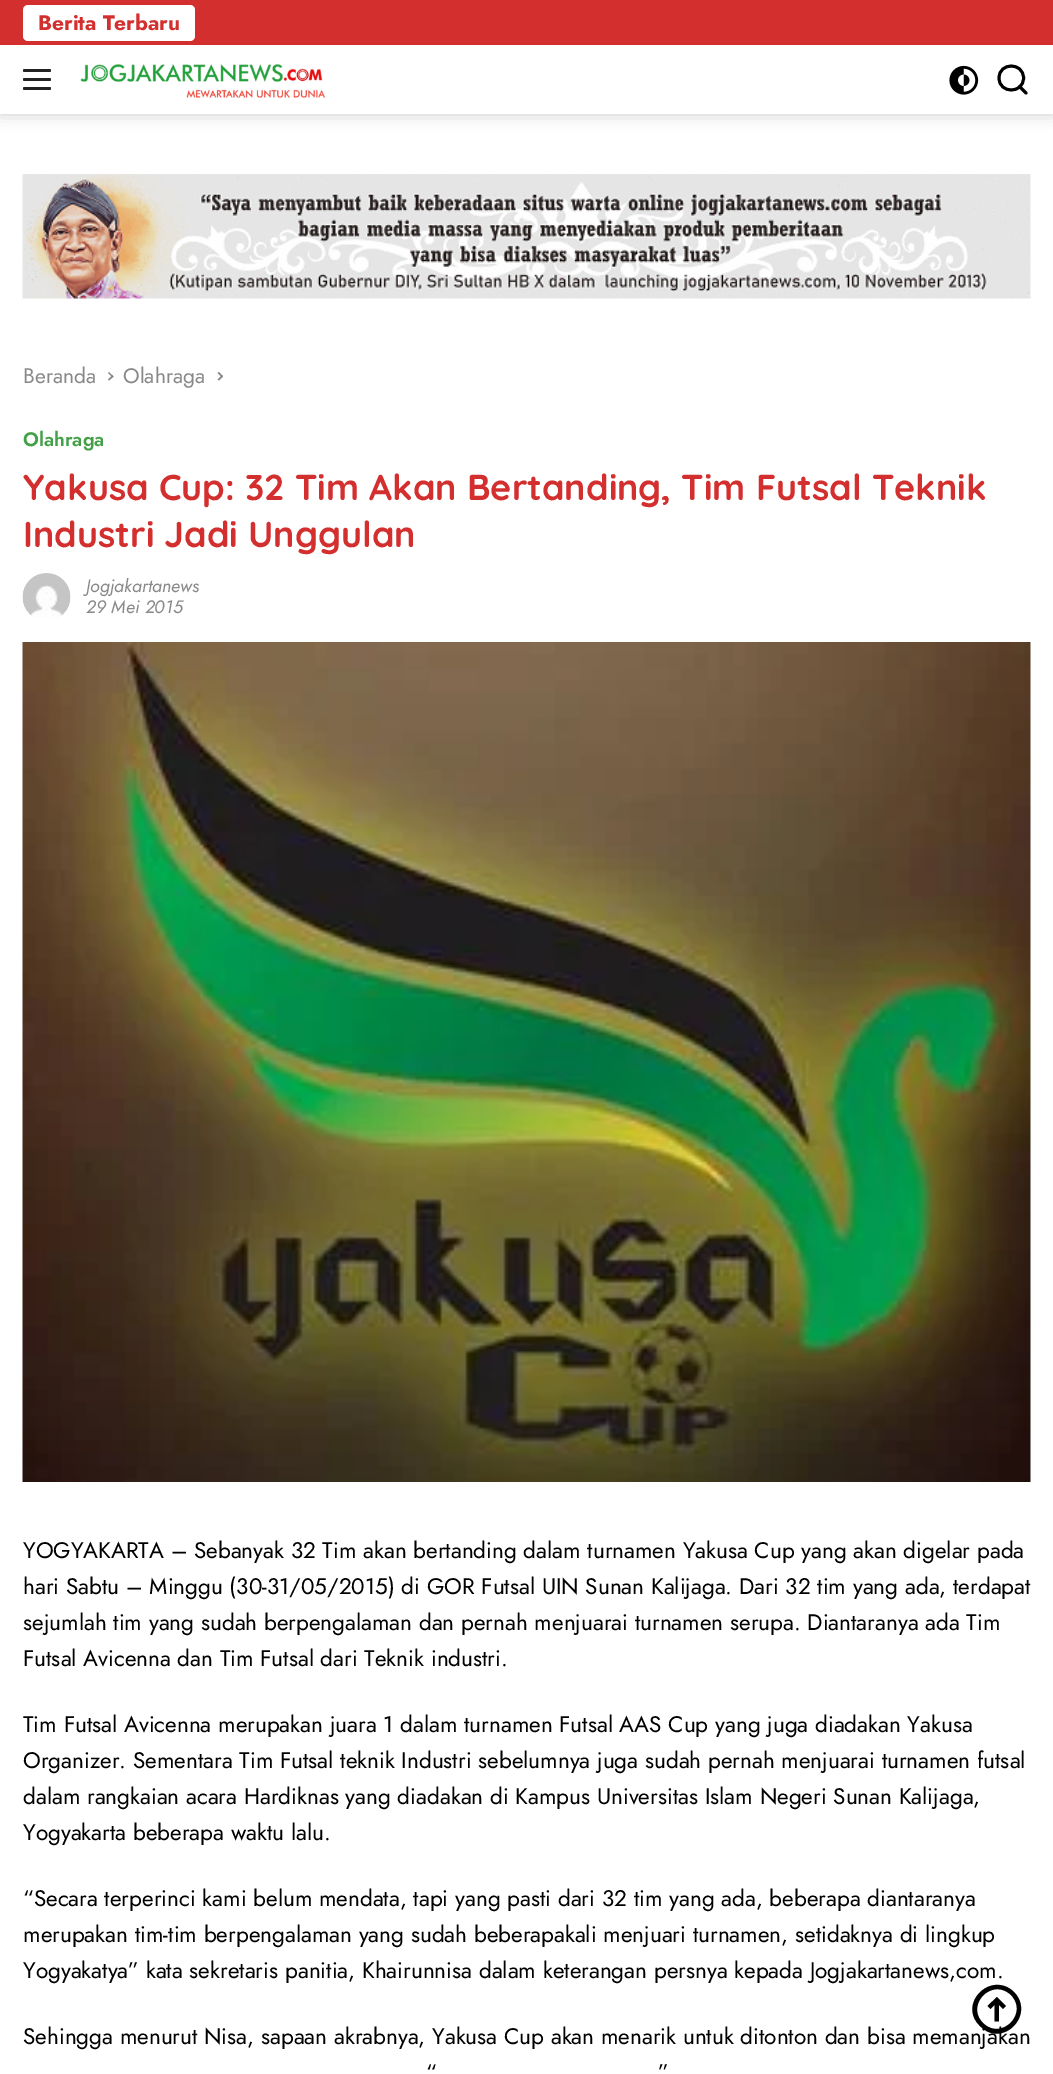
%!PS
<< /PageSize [1053 2074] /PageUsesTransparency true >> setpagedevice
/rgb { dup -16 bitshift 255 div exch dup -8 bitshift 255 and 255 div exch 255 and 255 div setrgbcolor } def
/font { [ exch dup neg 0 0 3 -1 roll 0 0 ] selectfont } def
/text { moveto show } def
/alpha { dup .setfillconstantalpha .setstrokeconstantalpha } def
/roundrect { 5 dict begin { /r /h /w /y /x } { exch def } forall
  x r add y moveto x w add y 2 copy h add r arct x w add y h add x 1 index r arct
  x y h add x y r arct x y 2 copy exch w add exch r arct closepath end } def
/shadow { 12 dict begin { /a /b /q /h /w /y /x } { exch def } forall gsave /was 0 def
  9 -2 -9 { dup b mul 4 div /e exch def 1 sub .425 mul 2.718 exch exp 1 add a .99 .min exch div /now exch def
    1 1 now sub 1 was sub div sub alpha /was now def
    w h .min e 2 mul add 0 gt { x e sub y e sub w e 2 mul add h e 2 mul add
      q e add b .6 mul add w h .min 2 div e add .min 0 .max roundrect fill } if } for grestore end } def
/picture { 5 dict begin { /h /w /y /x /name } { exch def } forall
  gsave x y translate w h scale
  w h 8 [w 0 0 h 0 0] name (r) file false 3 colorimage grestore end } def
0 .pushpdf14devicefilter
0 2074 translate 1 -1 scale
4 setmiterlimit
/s1 { /Jost-Bold 21 font 16#D32F2F rgb } def
/s2 { /Jost-Regular 21 font 16#888888 rgb } def
/s3 { /Jost-SemiBold 19.5 font 16#43A047 rgb } def
/s4 { /Quicksand-Bold 36 font 16#D32F2F rgb } def
/s5 { /Jost-Italic 18 font 16#888888 rgb } def
/s6 { /Jost-Regular 22.5 font 16#000000 rgb } def
16#FFFFFF rgb
0 0 1053 2074 rectfill
16#000000 rgb
0 0 1053 114 0 7.5 0.2 shadow
16#FFFFFF rgb
0 45 1053 69 rectfill
16#D32F2F rgb
0 0 1053 45 rectfill
16#FFFFFF rgb
23 5 172 36 5 roundrect fill
s1
(Berita Terbaru) 38 30 text
16#222222 rgb
23 69 28 3 1.5 roundrect fill
23 78 28 3 1.5 roundrect fill
23 87 28 3 1.5 roundrect fill
(pic1.raw) 80 64 246 34 picture
(pic2.raw) 949 65 30 30 picture
16#000000 rgb
2.9 setlinewidth
1 setlinecap
1026 93 moveto 1019.5 86.5 lineto 1023.5 78 moveto 1023.5 94 999 94 999 78 curveto 999 62 1023.5 62 1023.5 78 curveto closepath stroke
(pic3.raw) 22 174 1009 125 picture
s2
(Beranda) 23 383 text
108 373 moveto 109 372 lineto 113.5 376.5 lineto 112.5 377.5 lineto closepath fill
108 379.5 moveto 112.5 375 lineto 113.5 376.5 lineto 109 380.5 lineto closepath fill
(Olahraga) 123 383 text
217.5 373 moveto 219 372 lineto 223 376.5 lineto 222 377.5 lineto closepath fill
217.5 379.5 moveto 222 375 lineto 223 376.5 lineto 219 380.5 lineto closepath fill
s3
(Olahraga) 23 446 text
s4
(Yakusa Cup: 32 Tim Akan Bertanding, Tim Futsal Teknik) 23 500 text
(Industri Jadi Unggulan) 23 547 text
(pic4.raw) 22 573 49 45 picture
s5
(Jogjakartanews) 86 592 text
(29 Mei 2015) 86 613 text
(pic5.raw) 22 642 1009 840 picture
s6
(YOGYAKARTA – Sebanyak 32 Tim akan bertanding dalam turnamen Yakusa Cup yang akan digelar pada) 23 1558 text
(hari Sabtu – Minggu \(30-31/05/2015\) di GOR Futsal UIN Sunan Kalijaga. Dari 32 tim yang ada, terdapat) 23 1594 text
(sejumlah tim yang sudah berpengalaman dan pernah menjuarai turnamen serupa. Diantaranya ada Tim) 23 1630 text
(Futsal Avicenna dan Tim Futsal dari Teknik industri.) 23 1666 text
(Tim Futsal Avicenna merupakan juara 1 dalam turnamen Futsal AAS Cup yang juga diadakan Yakusa) 23 1732 text
(Organizer. Sementara Tim Futsal teknik Industri sebelumnya juga sudah pernah menjuarai turnamen futsal) 23 1768 text
(dalam rangkaian acara Hardiknas yang diadakan di Kampus Universitas Islam Negeri Sunan Kalijaga,) 23 1804 text
(Yogyakarta beberapa waktu lalu.) 23 1840 text
(“Secara terperinci kami belum mendata, tapi yang pasti dari 32 tim yang ada, beberapa diantaranya) 23 1906 text
(merupakan tim-tim berpengalaman yang sudah beberapakali menjuari turnamen, setidaknya di lingkup) 23 1942 text
(Yogyakatya” kata sekretaris panitia, Khairunnisa dalam keterangan persnya kepada Jogjakartanews,com.) 23 1978 text
(Sehingga menurut Nisa, sapaan akrabnya, Yakusa Cup akan menarik untuk ditonton dan bisa memanjakan) 23 2044 text
(“) 426 2080 text
(”) 658 2080 text
1003 2009 moveto 1006 2006 lineto 997 1997 lineto 987.5 2006 lineto 990.5 2009 lineto 994.5 2005 lineto 994.5 2021.5 lineto 999 2021.5 lineto 999 2005 lineto closepath fill
1014 1992 moveto 991 1970 957 2004 980 2026 curveto 1002 2049 1036 2015 1014 1992 curveto closepath 1011 1995 moveto 992 1977 965 2005 983 2023 curveto 1001 2041 1029 2014 1011 1995 curveto closepath eofill
.poppdf14devicefilter showpage
